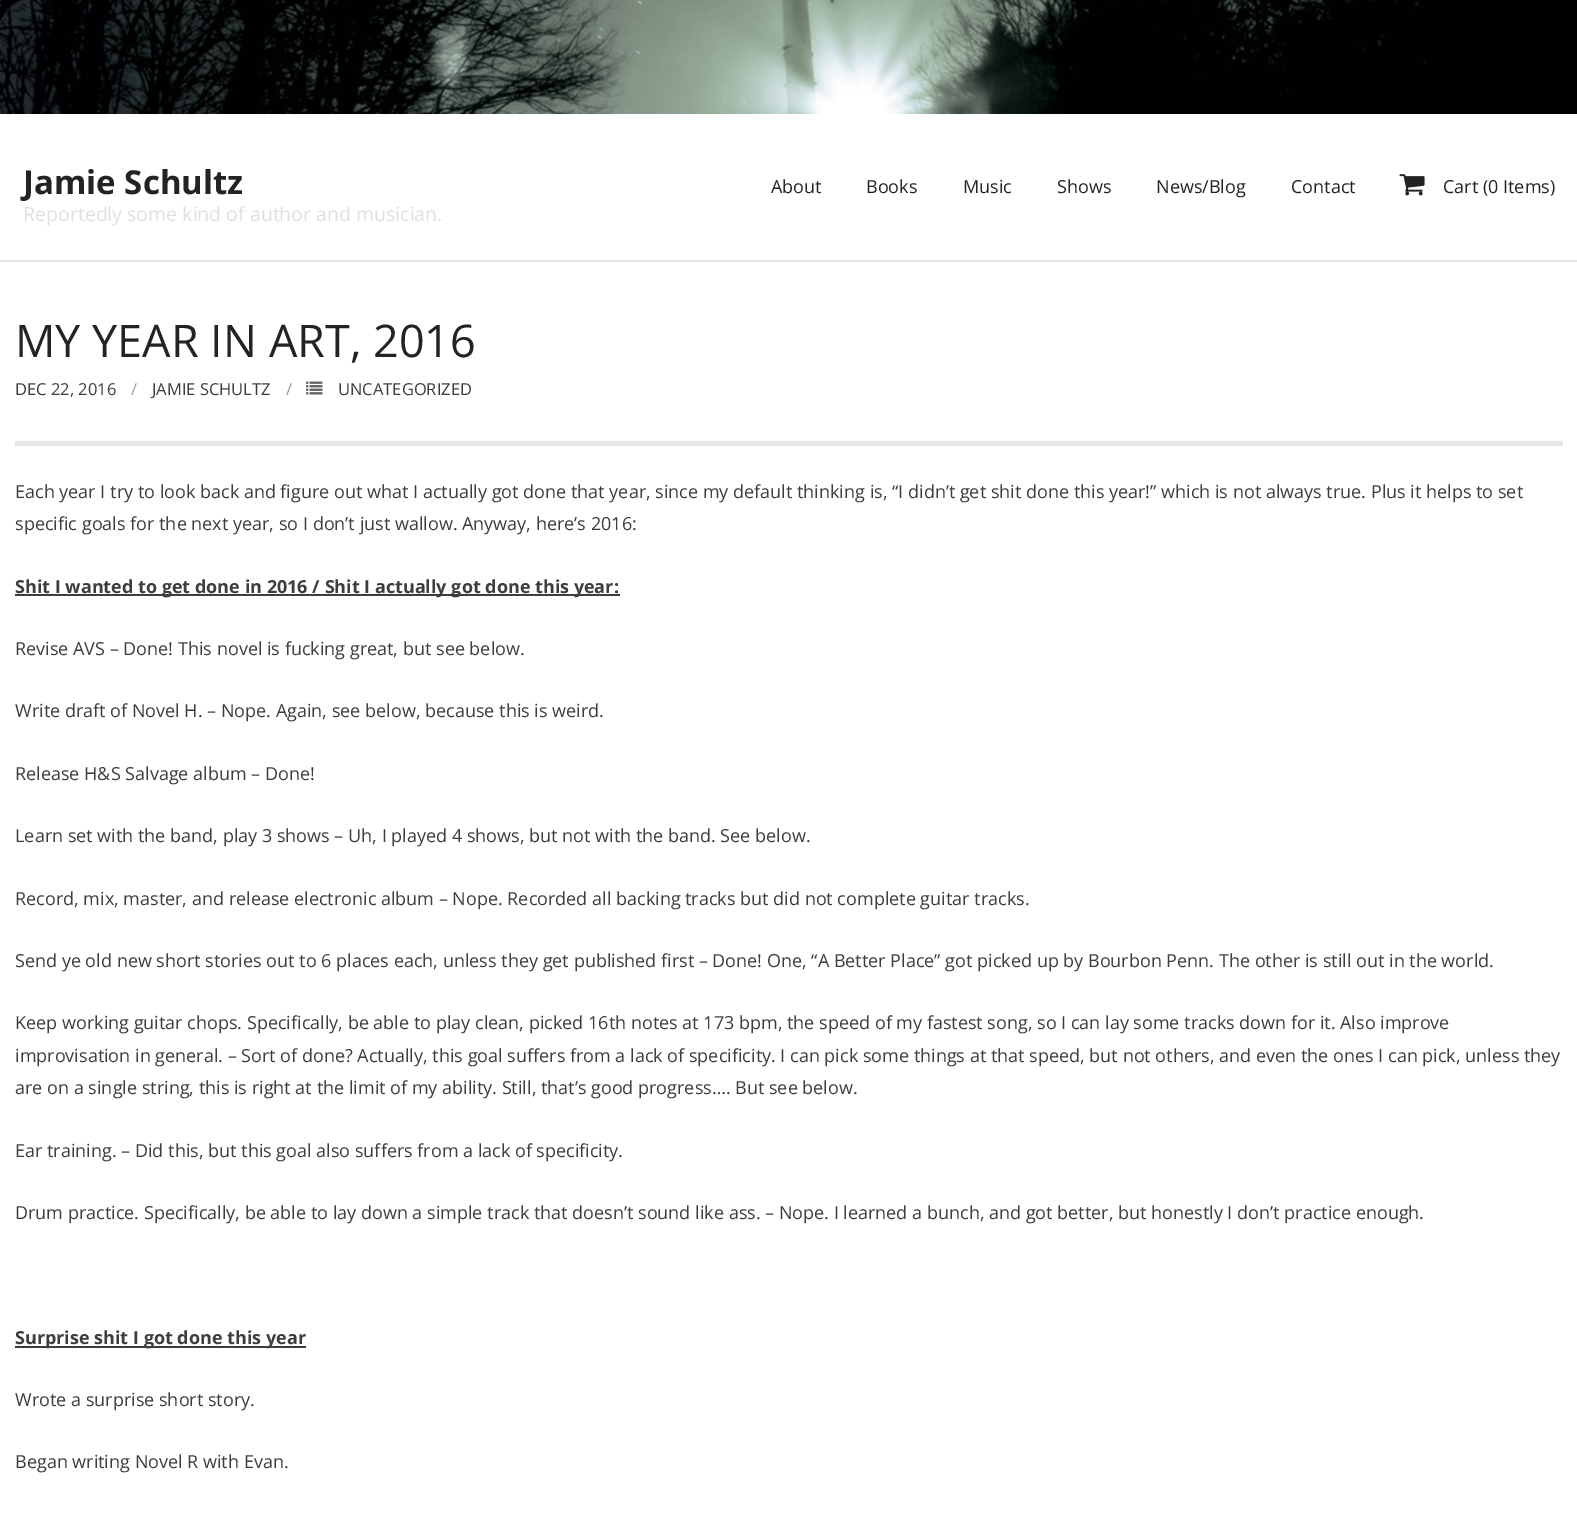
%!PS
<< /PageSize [1577 1515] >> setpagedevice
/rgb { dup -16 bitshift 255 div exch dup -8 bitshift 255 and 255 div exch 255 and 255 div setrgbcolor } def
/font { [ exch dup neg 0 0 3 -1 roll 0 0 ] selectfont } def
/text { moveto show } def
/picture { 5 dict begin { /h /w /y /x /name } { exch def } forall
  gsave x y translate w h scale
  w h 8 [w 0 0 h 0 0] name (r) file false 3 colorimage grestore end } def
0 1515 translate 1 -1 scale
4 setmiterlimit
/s1 { /OpenSans-Bold 33 font 16#232323 rgb } def
/s2 { /OpenSans-Regular 19.5 font 16#E0E0E0 rgb } def
/s3 { /OpenSans-Regular 18 font 16#232323 rgb } def
/s4 { /OpenSans-Regular 45 font 16#232323 rgb } def
/s5 { /OpenSans-Regular 16.5 font 16#3D3D3D rgb } def
/s6 { /OpenSans-Regular 16.5 font 16#999999 rgb } def
/s7 { /OpenSans-Regular 18 font 16#3D3D3D rgb } def
/s8 { /OpenSans-Bold 18 font 16#3D3D3D rgb } def
16#FFFFFF rgb
0 0 1577 1515 rectfill
(pic1.raw) 0 0 1577 114 picture
16#E3E3E3 rgb
0 260 1577 2 rectfill
s1
(Jamie Schultz) 23 194 text
s2
(Reportedly some kind of author and musician.) 23 221 text
s3
(About) 771 193 text
(Books) 866 193 text
(Music) 963 193 text
(Shows) 1057 193 text
(News/Blog) 1156 193 text
(Contact) 1291 193 text
(pic2.raw) 1399 174 26 22 picture
(Cart \(0 Items\)) 1443 193 text
16#E7E7E7 rgb
15 441 1548 5 rectfill
s4
(MY YEAR IN ART, 2016) 15 357 text
s5
(DEC 22, 2016) 15 395 text
s6
(/) 131 395 text
s5
(JAMIE SCHULTZ) 152 395 text
s6
(/) 286 395 text
(pic3.raw) 306 381 17 14 picture
s5
(UNCATEGORIZED) 338 395 text
s7
(Each year I try to look back and figure out what I actually got done that year, since my default thinking is, “I didn’t get shit done this year!” which is not always true. Plus it helps to set) 15 498 text
(specific goals for the next year, so I don’t just wallow. Anyway, here’s 2016:) 15 530 text
15 594 605 2 rectfill
s8
(Shit I wanted to get done in 2016 / Shit I actually got done this year:) 15 593 text
s7
(Revise AVS – Done! This novel is fucking great, but see below.) 15 655 text
(Write draft of Novel H. – Nope. Again, see below, because this is weird.) 15 717 text
(Release H&S Salvage album – Done!) 15 780 text
(Learn set with the band, play 3 shows – Uh, I played 4 shows, but not with the band. See below.) 15 842 text
(Record, mix, master, and release electronic album – Nope. Recorded all backing tracks but did not complete guitar tracks.) 15 905 text
(Send ye old new short stories out to 6 places each, unless they get published first – Done! One, “A Better Place” got picked up by Bourbon Penn. The other is still out in the world.) 15 967 text
(Keep working guitar chops. Specifically, be able to play clean, picked 16th notes at 173 bpm, the speed of my fastest song, so I can lay some tracks down for it. Also improve) 15 1029 text
(improvisation in general. – Sort of done? Actually, this goal suffers from a lack of specificity. I can pick some things at that speed, but not others, and even the ones I can pick, unless they) 15 1062 text
(are on a single string, this is right at the limit of my ability. Still, that’s good progress…. But see below.) 15 1094 text
(Ear training. – Did this, but this goal also suffers from a lack of specificity.) 15 1157 text
(Drum practice. Specifically, be able to lay down a simple track that doesn’t sound like ass. – Nope. I learned a bunch, and got better, but honestly I don’t practice enough.) 15 1219 text
15 1346 291 2 rectfill
s8
(Surprise shit I got done this year) 15 1344 text
s7
(Wrote a surprise short story.) 15 1406 text
(Began writing Novel R with Evan.) 15 1468 text
showpage
